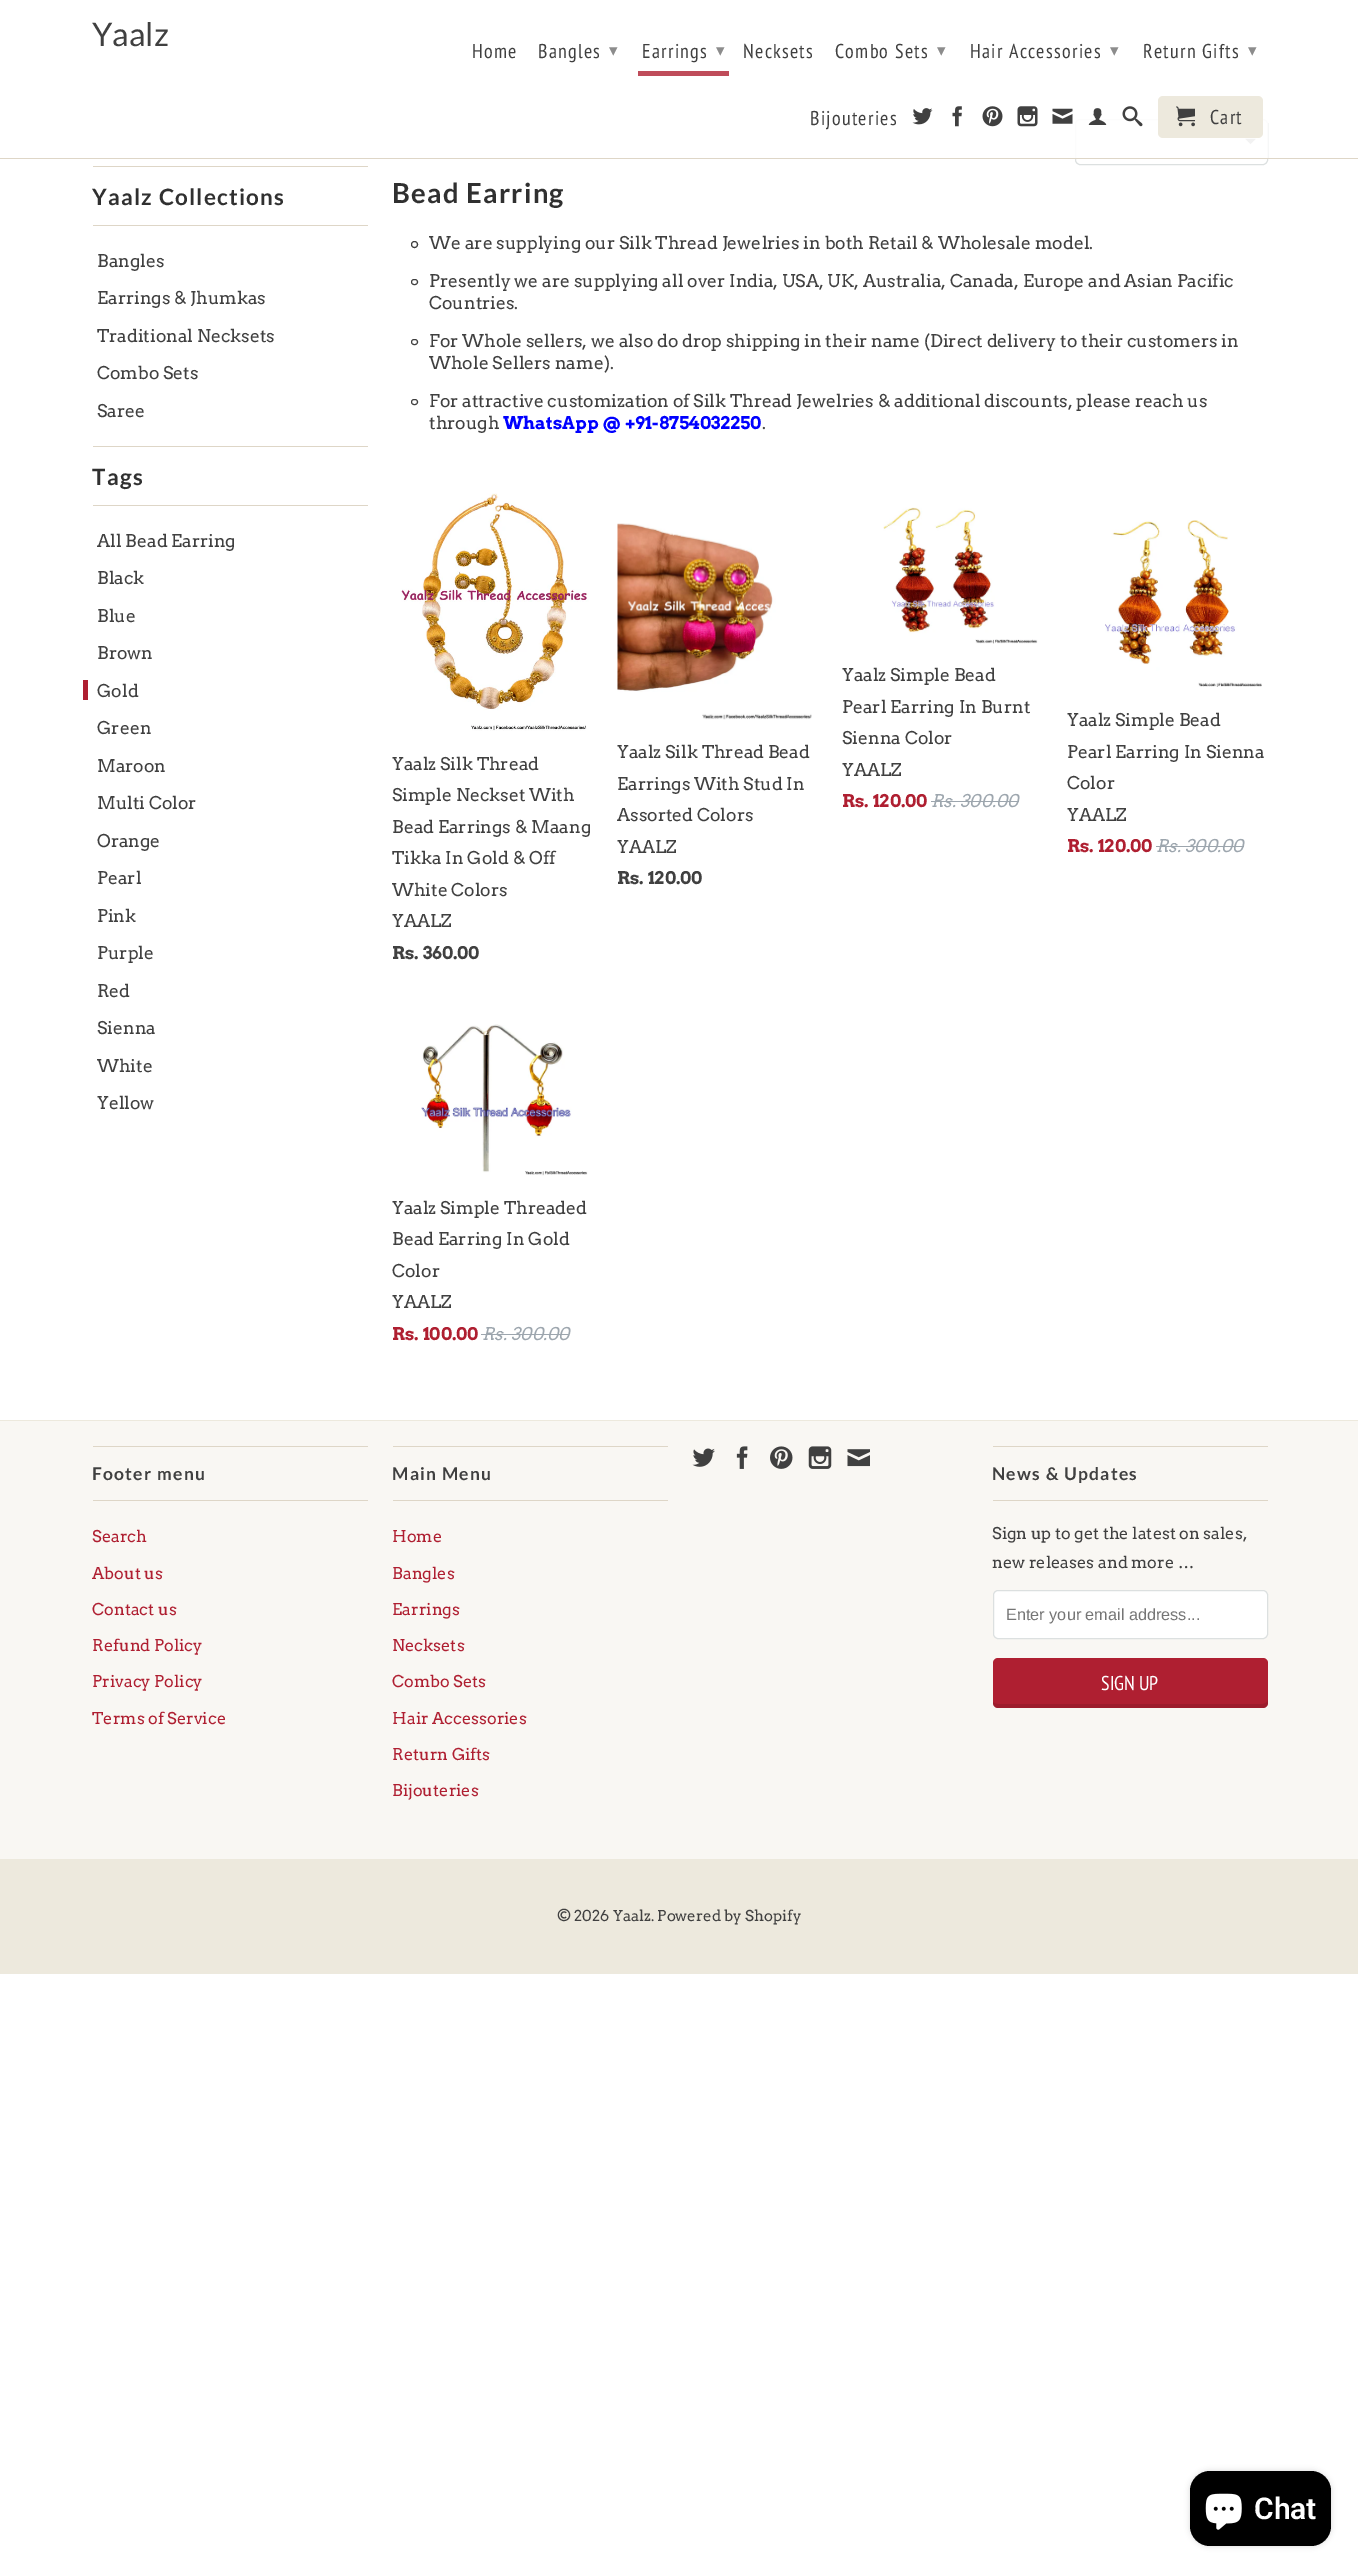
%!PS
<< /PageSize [1358 2572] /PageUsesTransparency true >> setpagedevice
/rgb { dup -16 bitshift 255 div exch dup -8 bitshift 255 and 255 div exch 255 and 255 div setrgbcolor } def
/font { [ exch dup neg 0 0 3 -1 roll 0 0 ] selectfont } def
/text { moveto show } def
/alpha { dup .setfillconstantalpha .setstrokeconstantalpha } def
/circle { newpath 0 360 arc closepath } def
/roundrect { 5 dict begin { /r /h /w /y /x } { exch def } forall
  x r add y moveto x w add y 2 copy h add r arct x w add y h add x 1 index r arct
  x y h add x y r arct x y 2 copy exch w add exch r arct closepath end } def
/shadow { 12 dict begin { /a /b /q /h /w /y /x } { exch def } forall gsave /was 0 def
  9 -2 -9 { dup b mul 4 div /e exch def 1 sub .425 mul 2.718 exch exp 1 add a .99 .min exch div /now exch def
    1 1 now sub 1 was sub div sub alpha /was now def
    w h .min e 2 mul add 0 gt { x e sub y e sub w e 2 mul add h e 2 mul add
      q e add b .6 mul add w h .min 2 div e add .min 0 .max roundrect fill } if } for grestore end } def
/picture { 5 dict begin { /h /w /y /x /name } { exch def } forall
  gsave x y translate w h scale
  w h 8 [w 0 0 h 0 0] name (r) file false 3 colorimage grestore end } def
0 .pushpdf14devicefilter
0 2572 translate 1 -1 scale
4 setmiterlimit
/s1 { /Lato-Regular 32.5 font 16#404040 rgb } def
/s2 { /Arvo-Regular 17.5 font 16#404040 rgb } def
/s3 { /Arvo-Bold 17.5 font 16#0000FF rgb } def
/s4 { /Arvo-Bold 17.5 font 16#404040 rgb } def
/s5 { /Arvo-Bold 17.5 font 16#AF1F31 rgb } def
/s6 { /Arvo-Italic 17.5 font 16#9DA6AE rgb } def
/s7 { /Arvo-Regular 16.25 font 16#AF1F31 rgb } def
/s8 { /Arvo-Regular 16.25 font 16#404040 rgb } def
/s9 { /LiberationSans-Regular 16.25 font 16#757575 rgb } def
/s10 { /PTSansNarrow-Regular 20 font 16#FFFFFF rgb } def
/s11 { /Arvo-Regular 15 font 16#404040 rgb } def
/s12 { /Roboto-SemiBold 30 font 16#FFFFFF rgb } def
16#FFFFFF rgb
0 0 1358 2572 rectfill
(pic9.raw) 1245 138 11 7 picture
16#DCE0E0 rgb
1075.5 119.5 192 45 4.5 roundrect stroke
0.9 alpha
16#FFFFFF rgb
1075 119 193 39 rectfill
1 alpha
16#DED6C7 rgb
0 158 1358 1 rectfill
s1
(Yaalz) 92 46 text
/PTSansNarrow-Regular 20 font
472 58 moveto 1.25 0 (Home) ashow
538 58 moveto 1.25 0 (Bangles) ashow
/DejaVuSans-Regular 17 font
16#8C8C8C rgb
609 56 moveto 1.25 0 (▾) ashow
/PTSansNarrow-Regular 20 font
16#404040 rgb
642 58 moveto 1.25 0 (Earrings) ashow
/DejaVuSans-Regular 17 font
16#8C8C8C rgb
716 56 moveto 1.25 0 (▾) ashow
16#BF4C5A rgb
638 71 91 5 rectfill
/PTSansNarrow-Regular 20 font
16#404040 rgb
743 58 moveto 1.25 0 (Necksets) ashow
835 58 moveto 1.25 0 (Combo Sets) ashow
/DejaVuSans-Regular 17 font
16#8C8C8C rgb
937 56 moveto 1.25 0 (▾) ashow
/PTSansNarrow-Regular 20 font
16#404040 rgb
970 58 moveto 1.25 0 (Hair Accessories) ashow
/DejaVuSans-Regular 17 font
16#8C8C8C rgb
1110 56 moveto 1.25 0 (▾) ashow
/PTSansNarrow-Regular 20 font
16#404040 rgb
1143 58 moveto 1.25 0 (Return Gifts) ashow
/DejaVuSans-Regular 17 font
16#8C8C8C rgb
1248 56 moveto 1.25 0 (▾) ashow
/PTSansNarrow-Regular 20 font
16#404040 rgb
810 125 moveto 1.25 0 (Bijouteries) ashow
(pic1.raw) 912 108 21 17 picture
(pic2.raw) 952 106 10 21 picture
(pic3.raw) 982 106 21 21 picture
(pic4.raw) 1017 106 21 21 picture
(pic5.raw) 1052 108 21 16 picture
(pic6.raw) 1088 108 19 17 picture
(pic7.raw) 1122 106 21 21 picture
16#EDE9DD rgb
1158 96 105 42 5 roundrect fill
(pic8.raw) 1176 106 19 21 picture
16#404040 rgb
1210 124 moveto 1.25 0 (Cart) ashow
16#DED6C7 rgb
93 166 275 1 rectfill
93 225 275 1 rectfill
/Lato-Bold 22.5 font
16#303030 rgb
92 205 moveto 1.25 0 (Yaalz Collections) ashow
s2
(Bangles) 97 267 text
(Earrings & Jhumkas) 97 304 text
(Traditional Necksets) 97 342 text
(Combo Sets) 97 379 text
(Saree) 97 417 text
16#DED6C7 rgb
93 446 275 1 rectfill
93 505 275 1 rectfill
/Lato-Bold 22.5 font
16#303030 rgb
92 485 moveto 1.25 0 (Tags) ashow
s2
(All Bead Earring) 97 547 text
(Black) 97 584 text
(Blue) 97 622 text
(Brown) 97 659 text
(Gold) 97 697 text
16#AF1F31 rgb
83 680 5 20 rectfill
s2
(Green) 97 734 text
(Maroon) 97 772 text
(Multi Color) 97 809 text
(Orange) 97 847 text
(Pearl) 97 884 text
(Pink) 97 922 text
(Purple) 97 959 text
(Red) 97 997 text
(Sienna) 97 1034 text
(White) 97 1072 text
(Yellow) 97 1109 text
/Lato-Bold 27.5 font
16#303030 rgb
392 203 moveto 1.25 0 (Bead Earring) ashow
16#404040 rgb
414.5 244.5 3 circle stroke
s2
(We are supplying our Silk Thread Jewelries in both Retail & Wholesale model.) 429 249 text
411.5 279.5 6 5 2.5 roundrect stroke
(Presently we are supplying all over India, USA, UK, Australia, Canada, Europe and Asian Pacific) 429 287 text
(Countries.) 429 309 text
411.5 339.5 6 5 2.5 roundrect stroke
(For Whole sellers, we also do drop shipping in their name \(Direct delivery to their customers in) 429 347 text
(Whole Sellers name\).) 429 369 text
411.5 399.5 6 5 2.5 roundrect stroke
(For attractive customization of Silk Thread Jewelries & additional discounts, please reach us) 429 407 text
(through) 429 429 text
s3
(WhatsApp @ +91-8754032250) 503 429 text
s2
(.) 762 429 text
(pic10.raw) 401 493 188 238 picture
(Yaalz Silk Thread) 392 770 text
(Simple Neckset With) 392 801 text
(Bead Earrings & Maang) 392 833 text
(Tikka In Gold & Off) 392 864 text
(White Colors) 392 896 text
(YAALZ) 392 927 text
s4
(Rs. 360.00) 392 959 text
(pic11.raw) 617 523 195 197 picture
s2
(Yaalz Silk Thread Bead) 617 758 text
(Earrings With Stud In) 617 790 text
(Assorted Colors) 617 821 text
(YAALZ) 617 853 text
s4
(Rs. 120.00) 617 884 text
(pic12.raw) 883 507 155 137 picture
s2
(Yaalz Simple Bead) 842 681 text
(Pearl Earring In Burnt) 842 713 text
(Sienna Color) 842 744 text
(YAALZ) 842 776 text
s5
(Rs. 120.00) 842 807 text
s6
(Rs. 300.00) 931 807 text
931 801 88 1 rectfill
(pic13.raw) 1105 520 157 167 picture
s2
(Yaalz Simple Bead) 1067 726 text
(Pearl Earring In Sienna) 1067 758 text
(Color) 1067 789 text
(YAALZ) 1067 821 text
s5
(Rs. 120.00) 1067 852 text
s6
(Rs. 300.00) 1156 852 text
1156 846 88 1 rectfill
(pic14.raw) 421 1024 167 152 picture
s2
(Yaalz Simple Threaded) 392 1214 text
(Bead Earring In Gold) 392 1245 text
(Color) 392 1277 text
(YAALZ) 392 1308 text
s5
(Rs. 100.00) 392 1340 text
s6
(Rs. 300.00) 482 1340 text
481 1334 88 1 rectfill
16#F9F7F3 rgb
0 1421 1358 438 rectfill
16#EDE9DD rgb
0 1420 1358 1 rectfill
(pic15.raw) 692 1448 23 19 picture
(pic16.raw) 736 1446 12 23 picture
(pic17.raw) 770 1446 23 23 picture
(pic18.raw) 808 1446 24 23 picture
(pic19.raw) 847 1449 23 18 picture
16#DED6C7 rgb
93 1446 275 1 rectfill
93 1500 275 1 rectfill
/Lato-Bold 17.5 font
16#404040 rgb
92 1480 moveto 1.25 0 (Footer menu) ashow
s7
(Search) 92 1542 text
(About us) 92 1579 text
(Contact us) 92 1615 text
(Refund Policy) 92 1651 text
(Privacy Policy) 92 1687 text
(Terms of Service) 92 1724 text
16#DED6C7 rgb
393 1446 275 1 rectfill
393 1500 275 1 rectfill
/Lato-Bold 17.5 font
16#404040 rgb
392 1480 moveto 1.25 0 (Main Menu) ashow
s7
(Home) 392 1542 text
(Bangles) 392 1579 text
(Earrings) 392 1615 text
(Necksets) 392 1651 text
(Combo Sets) 392 1687 text
(Hair Accessories) 392 1724 text
(Return Gifts) 392 1760 text
(Bijouteries) 392 1796 text
16#DED6C7 rgb
993 1446 275 1 rectfill
993 1500 275 1 rectfill
/Lato-Bold 17.5 font
16#404040 rgb
992 1480 moveto 1.25 0 (News & Updates) ashow
s8
(Sign up to get the latest on sales,) 992 1539 text
(new releases and more …) 992 1568 text
16#FFFFFF rgb
993.5 1590.5 274 48 4.5 roundrect gsave fill grestore
16#DCE0E0 rgb
stroke
s9
(Enter your email address...) 1006 1620 text
16#AF1F31 rgb
993 1658 275 50 5 roundrect fill
0.1 alpha
16#000000 rgb
993 1702 moveto 993 1703 lineto 993 1706 995 1708 998 1708 curveto 1263 1708 lineto 1266 1708 1268 1706 1268 1703 curveto 1268 1699 lineto 1268 1702 1265 1704 1262 1704 curveto 998 1704 lineto 996 1704 994 1703 993 1702 curveto closepath fill
1 alpha
s10
(SIGN UP) 1101 1690 text
16#EDE9DD rgb
0 1859 1358 115 rectfill
s11
(© 2026 Yaalz. Powered by Shopify) 557 1921 text
16#000000 rgb
1190 2471 141 75 20 3 0.15 shadow
1190 2471 141 75 20 roundrect fill
(pic20.raw) 1205 2493 37 37 picture
s12
(Chat) 1254 2519 text
.poppdf14devicefilter showpage
